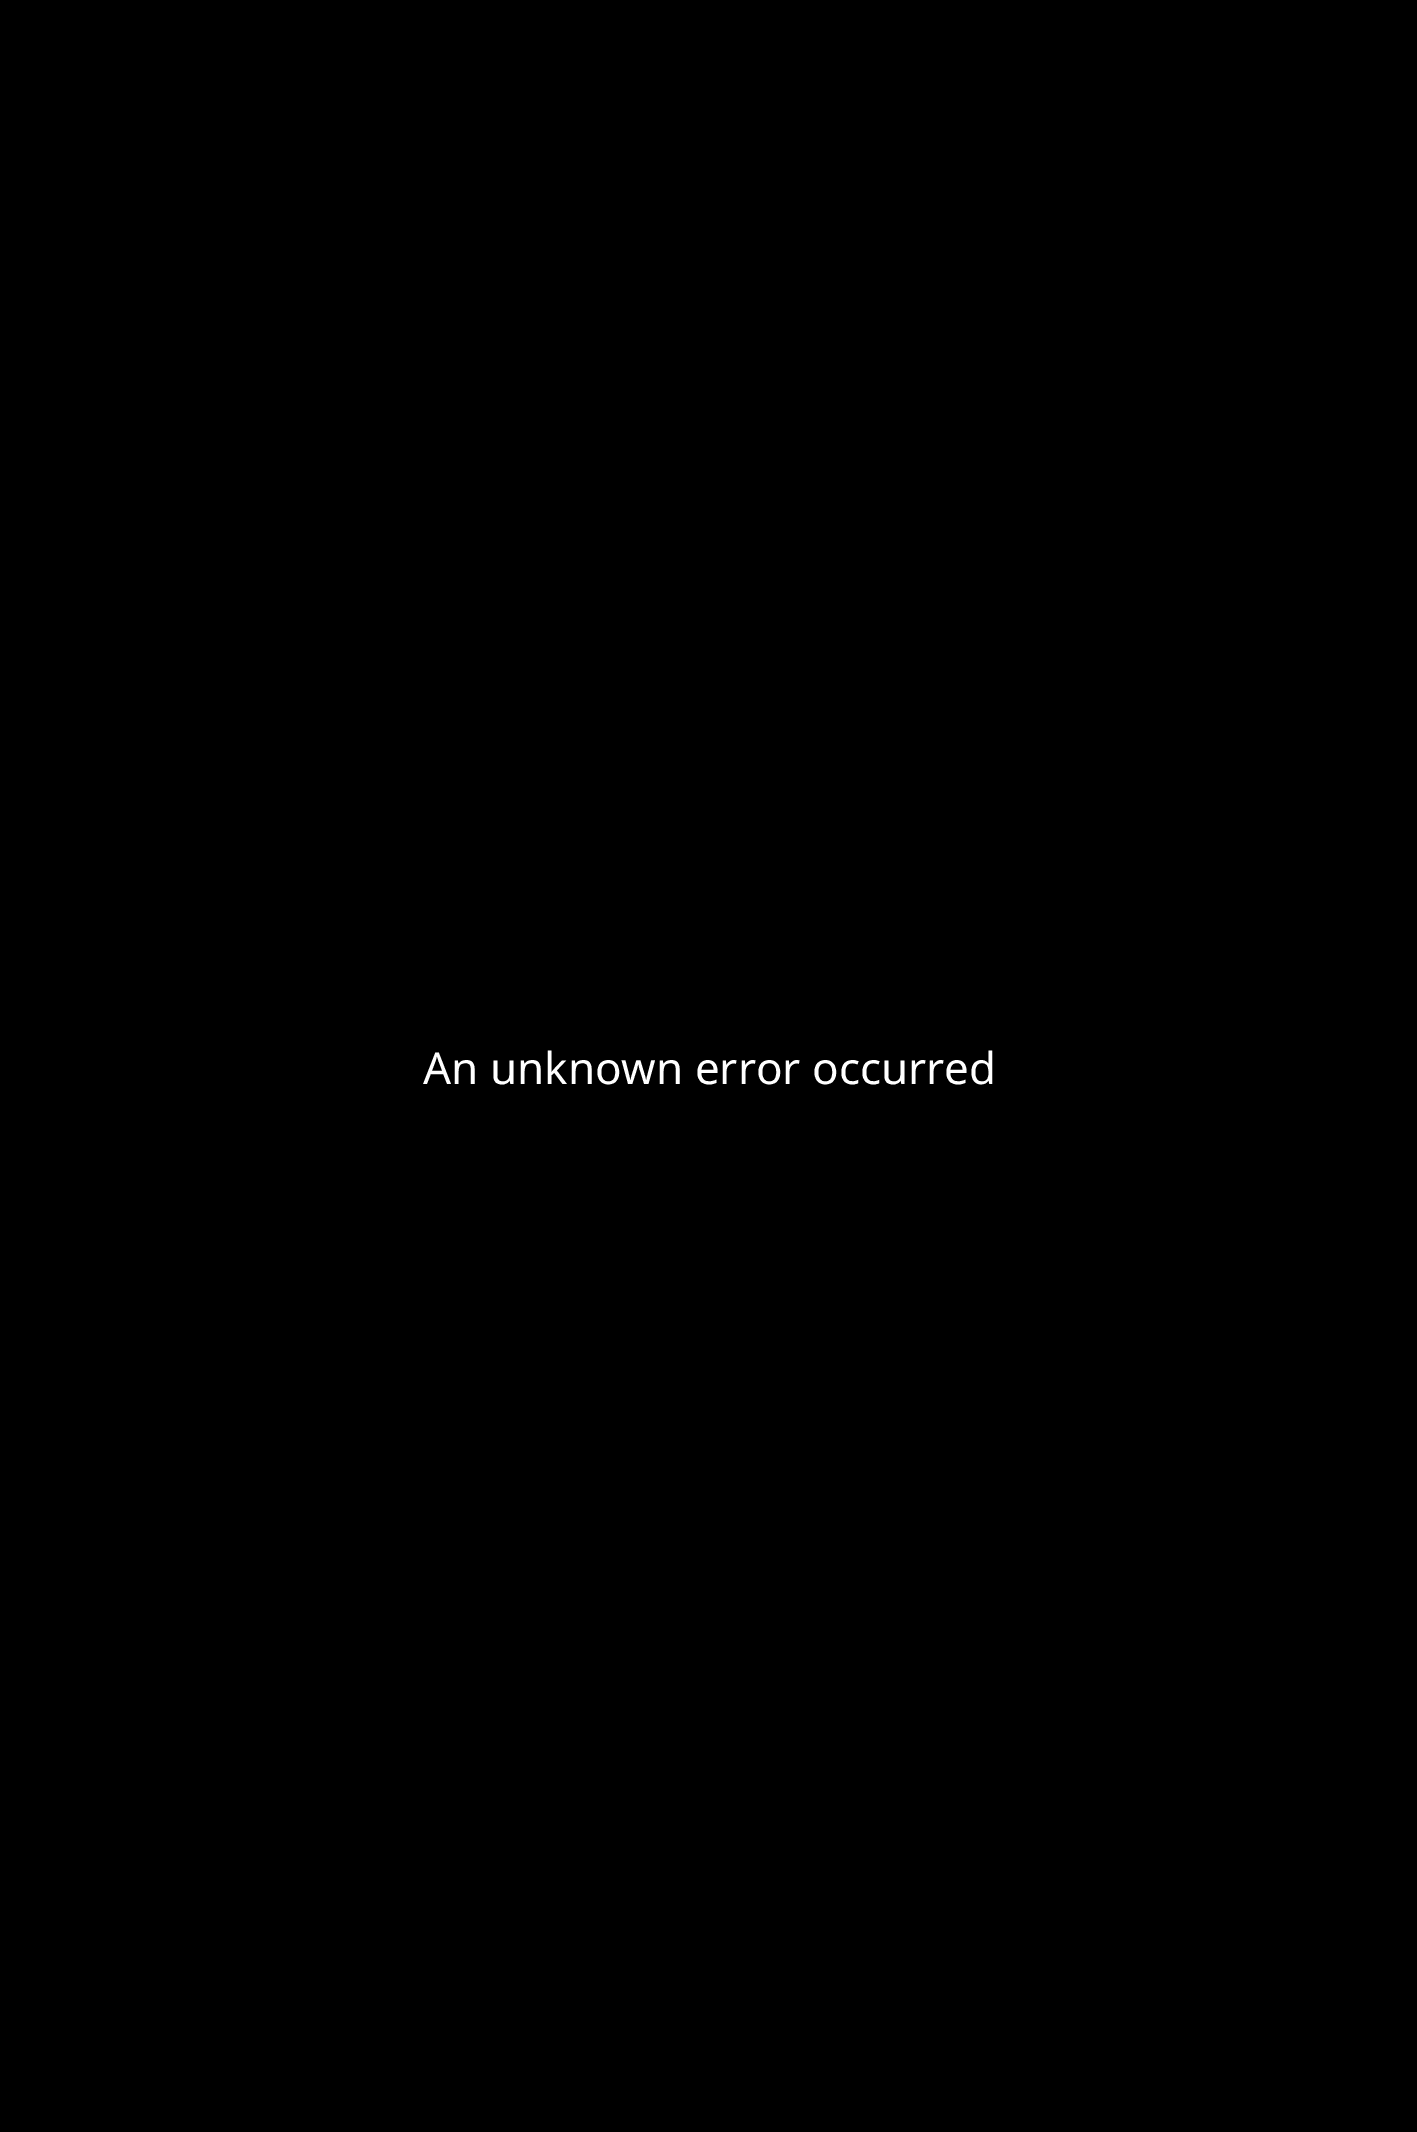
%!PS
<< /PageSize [1417 2132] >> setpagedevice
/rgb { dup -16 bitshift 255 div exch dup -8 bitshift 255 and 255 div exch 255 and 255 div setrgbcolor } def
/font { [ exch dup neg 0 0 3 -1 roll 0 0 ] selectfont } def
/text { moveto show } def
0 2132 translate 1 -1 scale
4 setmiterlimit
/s1 { /NotoSans-Regular 44 font 16#FFFFFF rgb } def
16#000000 rgb
0 0 1417 2132 rectfill
s1
(An unknown error occurred) 423 1084 text
showpage
